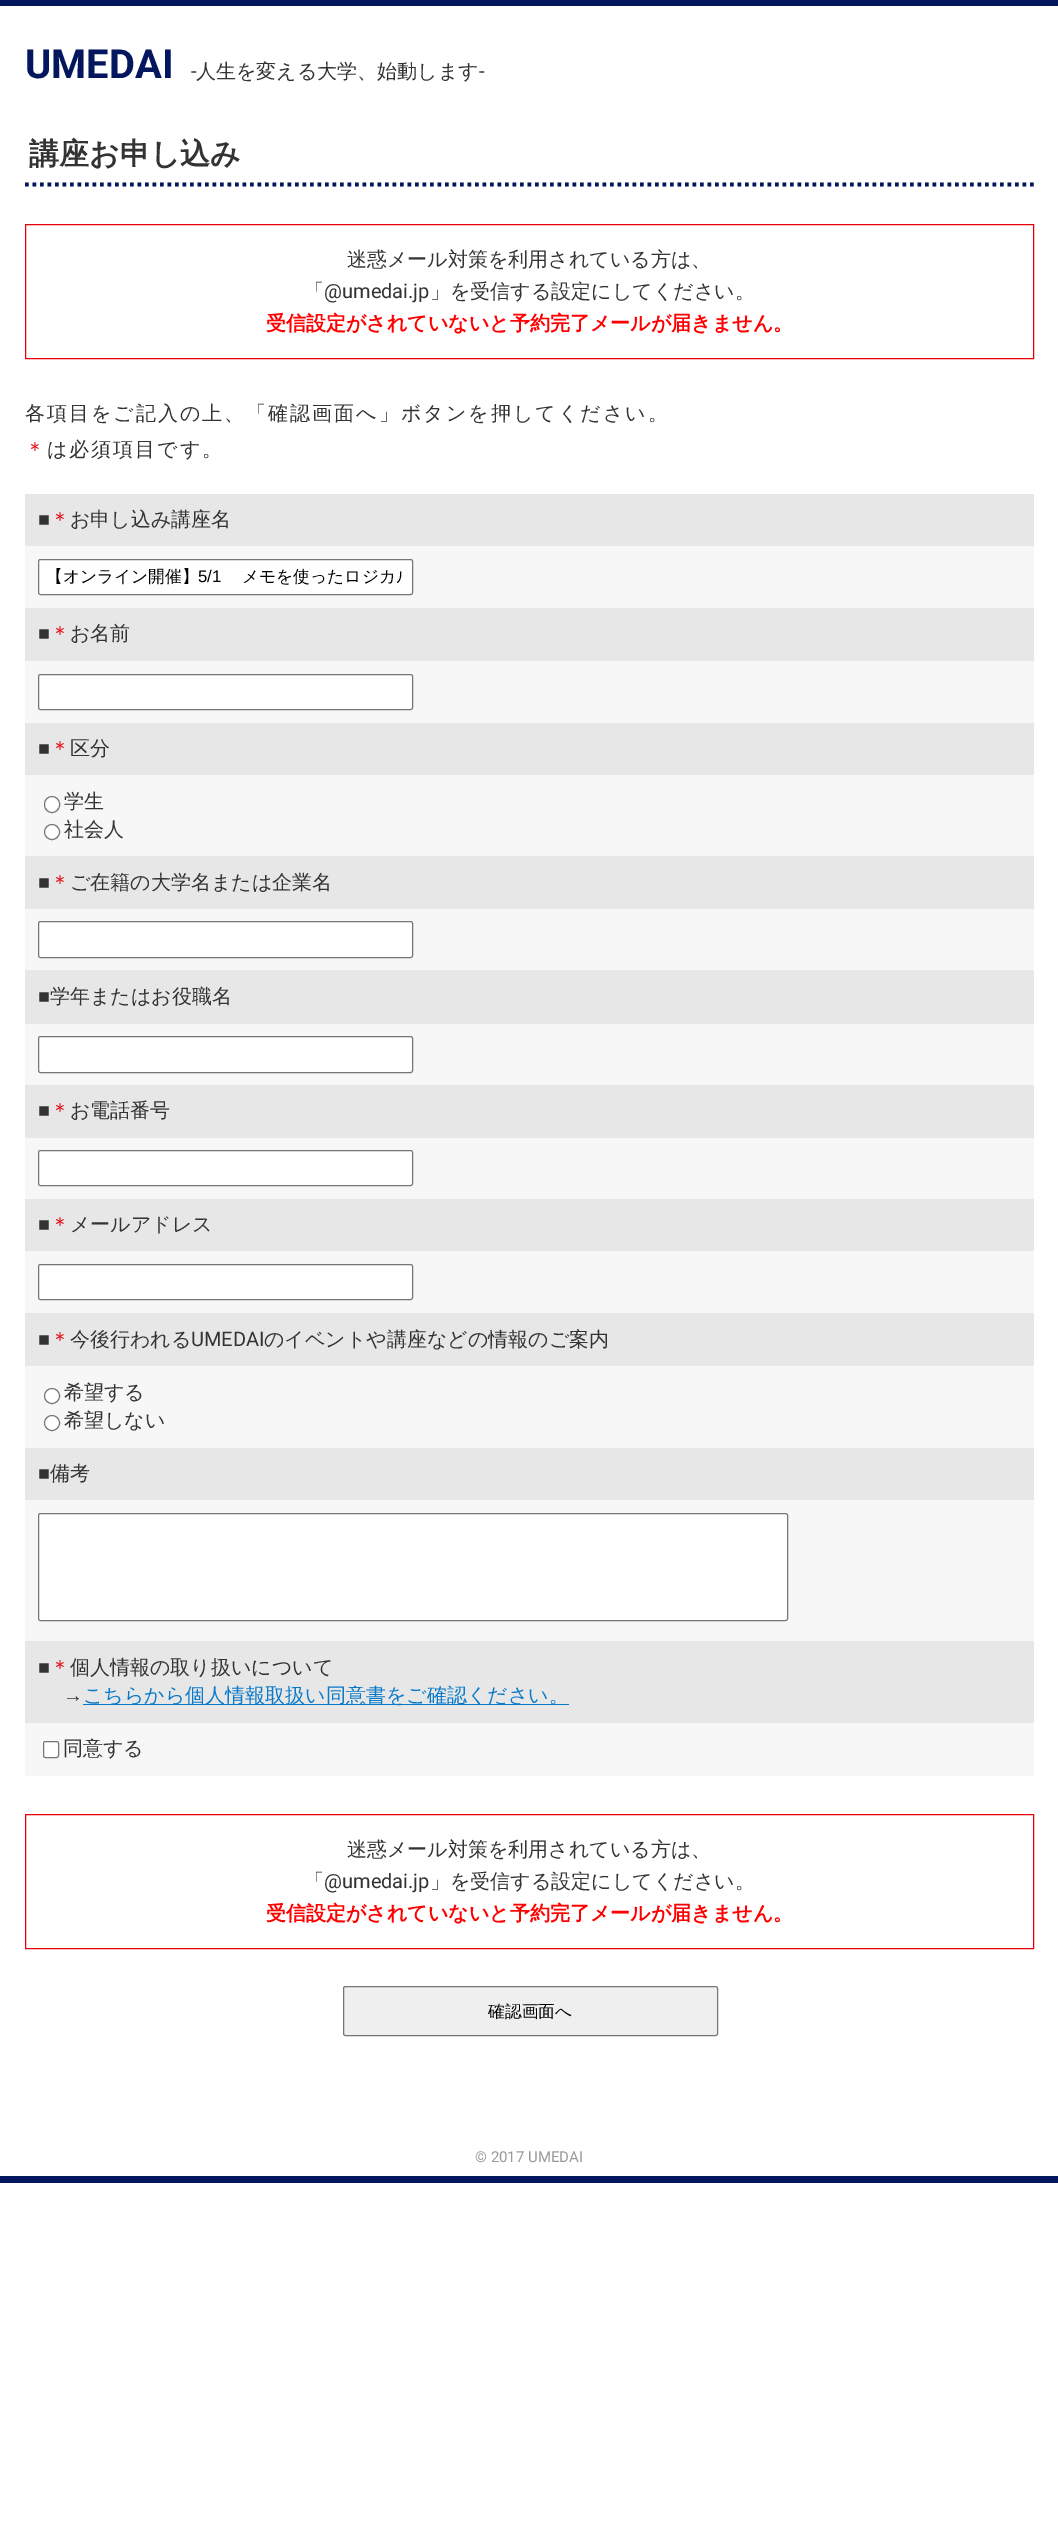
%!PS
<< /PageSize [1058 2538] >> setpagedevice
/rgb { dup -16 bitshift 255 div exch dup -8 bitshift 255 and 255 div exch 255 and 255 div setrgbcolor } def
/font { [ exch dup neg 0 0 3 -1 roll 0 0 ] selectfont } def
/text { moveto show } def
/circle { newpath 0 360 arc closepath } def
/roundrect { 5 dict begin { /r /h /w /y /x } { exch def } forall
  x r add y moveto x w add y 2 copy h add r arct x w add y h add x 1 index r arct
  x y h add x y r arct x y 2 copy exch w add exch r arct closepath end } def
0 2538 translate 1 -1 scale
4 setmiterlimit
/s1 { /Roboto-Bold 40 font 16#04165E rgb } def
/s2 { /Roboto-Regular 20 font 16#333333 rgb } def
/s3 { /WenQuanYiZenHei-Medium 20 font 16#333333 rgb } def
/s4 { /WenQuanYiZenHei-Bold 30 font 16#333333 rgb } def
/s5 { /WenQuanYiZenHei-Bold 20 font 16#FF0000 rgb } def
/s6 { /LiberationSans-Regular 20 font 16#333333 rgb } def
/s7 { /WenQuanYiZenHei-Medium 20 font 16#E5000B rgb } def
/s8 { /WenQuanYiZenHei-Medium 16.75 font 16#000000 rgb } def
/s9 { /LiberationSans-Regular 16.75 font 16#000000 rgb } def
/s10 { /WenQuanYiZenHei-Medium 20 font 16#097ACA rgb } def
/s11 { /Roboto-Regular 15 font 16#999999 rgb } def
16#FFFFFF rgb
0 0 1058 2538 rectfill
16#04165E rgb
0 0 1058 6 rectfill
s1
(UMEDAI) 25 78 text
s2
(-) 191 78 text
s3
(人生を変える大学、始動します) 196 78 text
s2
(-) 479 78 text
16#04165E rgb
3.8 setlinewidth
[3.75 3.75] 0 setdash
25 184.5 moveto 1034 184.5 lineto stroke
s4
(講座お申し込み) 29 164 text
16#E5000B rgb
1 setlinewidth
[] 0 setdash
25.5 224.5 1008 134 rectstroke
s3
(迷惑メール対策を利用されている方は、) 347 266 text
(「) 304 298 text
s2
(@umedai.jp) 324 298 text
s3
(」を受信する設定にしてください。) 430 298 text
s5
(受信設定がされていないと予約完了メールが届きません。) 266 330 text
/WenQuanYiZenHei-Medium 20 font
16#333333 rgb
25 420 moveto 2 0 (各項目をご記入の上、「確認画面へ」ボタンを押してください。) ashow
16#E5000B rgb
25 456 moveto 2 0 (＊) ashow
16#333333 rgb
47 456 moveto 2 0 (は必須項目です。) ashow
16#E7E7E7 rgb
25 494 1009 52 rectfill
s6
(■) 38 526 text
s7
(＊) 50 526 text
s3
(お申し込み講座名) 70 526 text
16#F7F7F7 rgb
25 546 1009 62 rectfill
16#FFFFFF rgb
38.5 559.5 374 35 2 roundrect gsave fill grestore
16#767676 rgb
stroke
s8
(【オンライン開催】) 46 582 text
s9
(5/1) 198 582 text
gsave
46 566 358 23 rectclip
s8
(メモを使ったロジカル) 242 582 text
grestore
16#E7E7E7 rgb
25 608 1009 53 rectfill
s6
(■) 38 640 text
s7
(＊) 50 640 text
s3
(お名前) 70 640 text
16#F7F7F7 rgb
25 661 1009 62 rectfill
16#FFFFFF rgb
38.5 674.5 374 35 2 roundrect gsave fill grestore
16#767676 rgb
stroke
16#E7E7E7 rgb
25 723 1009 52 rectfill
s6
(■) 38 755 text
s7
(＊) 50 755 text
s3
(区分) 70 755 text
16#F7F7F7 rgb
25 775 1009 81 rectfill
16#FFFFFF rgb
44.5 796.5 15 16 7.5 roundrect gsave fill grestore
16#767676 rgb
stroke
s3
(学生) 64 808 text
16#FFFFFF rgb
52 832 7.5 circle gsave fill grestore
16#767676 rgb
stroke
s3
(社会人) 64 836 text
16#E7E7E7 rgb
25 856 1009 53 rectfill
s6
(■) 38 889 text
s7
(＊) 50 889 text
s3
(ご在籍の大学名または企業名) 70 889 text
16#F7F7F7 rgb
25 909 1009 61 rectfill
16#FFFFFF rgb
38.5 921.5 374 36 2 roundrect gsave fill grestore
16#767676 rgb
stroke
16#E7E7E7 rgb
25 970 1009 54 rectfill
s6
(■) 38 1003 text
s3
(学年またはお役職名) 50 1003 text
16#F7F7F7 rgb
25 1024 1009 61 rectfill
16#FFFFFF rgb
38.5 1036.5 374 36 2 roundrect gsave fill grestore
16#767676 rgb
stroke
16#E7E7E7 rgb
25 1085 1009 53 rectfill
s6
(■) 38 1117 text
s7
(＊) 50 1117 text
s3
(お電話番号) 70 1117 text
16#F7F7F7 rgb
25 1138 1009 61 rectfill
16#FFFFFF rgb
38.5 1150.5 374 35 2 roundrect gsave fill grestore
16#767676 rgb
stroke
16#E7E7E7 rgb
25 1199 1009 52 rectfill
s6
(■) 38 1231 text
s7
(＊) 50 1231 text
s3
(メールアドレス) 70 1231 text
16#F7F7F7 rgb
25 1251 1009 62 rectfill
16#FFFFFF rgb
38.5 1264.5 374 35 2 roundrect gsave fill grestore
16#767676 rgb
stroke
16#E7E7E7 rgb
25 1313 1009 53 rectfill
s6
(■) 38 1346 text
s7
(＊) 50 1346 text
s3
(今後行われる) 70 1346 text
s2
(UMEDAI) 191 1346 text
s3
(のイベントや講座などの情報のご案内) 264 1346 text
16#F7F7F7 rgb
25 1366 1009 82 rectfill
16#FFFFFF rgb
52 1396 7.5 circle gsave fill grestore
16#767676 rgb
stroke
s3
(希望する) 64 1399 text
16#FFFFFF rgb
52 1423 7.5 circle gsave fill grestore
16#767676 rgb
stroke
s3
(希望しない) 64 1427 text
16#E7E7E7 rgb
25 1448 1009 52 rectfill
s6
(■) 38 1480 text
s3
(備考) 50 1480 text
16#F7F7F7 rgb
25 1500 1009 141 rectfill
16#FFFFFF rgb
38.5 1513.5 749 107 2 roundrect gsave fill grestore
16#767676 rgb
stroke
16#E7E7E7 rgb
25 1641 1009 82 rectfill
s6
(■) 38 1674 text
s7
(＊) 50 1674 text
s3
(個人情報の取り扱いについて) 70 1674 text
s6
(→) 63 1702 text
16#097ACA rgb
83 1704 486 1 rectfill
s10
(こちらから個人情報取扱い同意書をご確認ください。) 83 1702 text
16#F7F7F7 rgb
25 1723 1009 53 rectfill
16#FFFFFF rgb
43.5 1741.5 15 16 2 roundrect gsave fill grestore
16#767676 rgb
stroke
s3
(同意する) 63 1755 text
16#E5000B rgb
25.5 1814.5 1008 134 rectstroke
s3
(迷惑メール対策を利用されている方は、) 347 1856 text
(「) 304 1888 text
s2
(@umedai.jp) 324 1888 text
s3
(」を受信する設定にしてください。) 430 1888 text
s5
(受信設定がされていないと予約完了メールが届きません。) 266 1920 text
16#EFEFEF rgb
343.5 1986.5 374 49 2 roundrect gsave fill grestore
16#767676 rgb
stroke
s8
(確認画面へ) 488 2017 text
16#04165E rgb
0 2176 1058 7 rectfill
s11
(© 2017 UMEDAI) 475 2162 text
showpage
